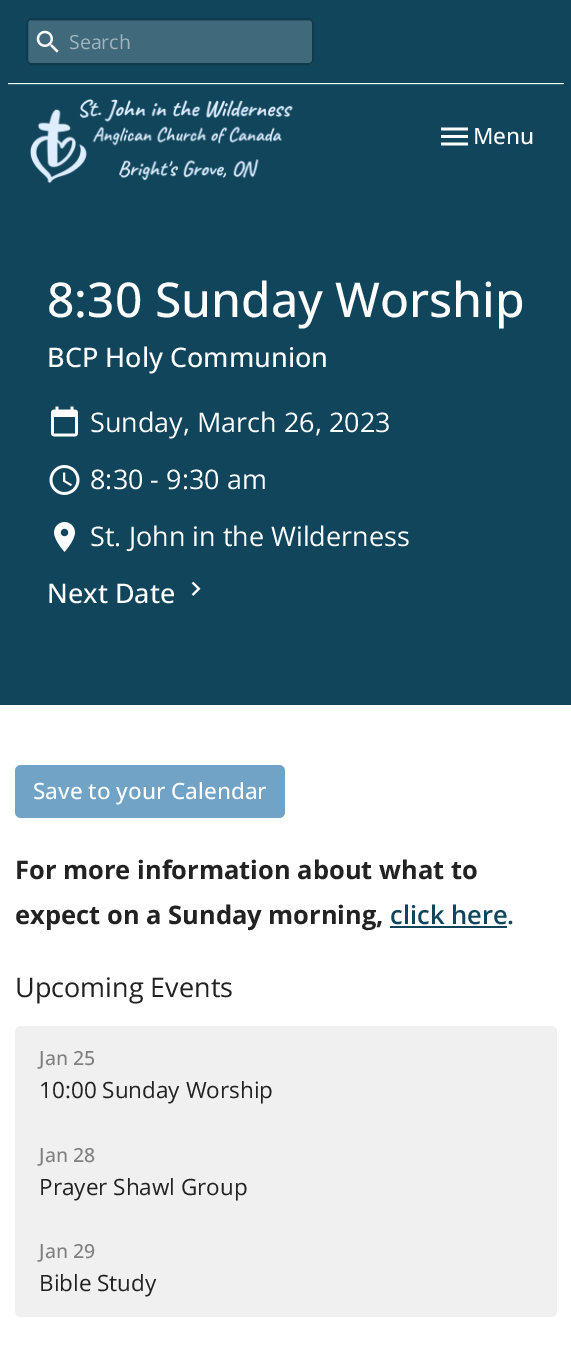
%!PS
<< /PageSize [571 1363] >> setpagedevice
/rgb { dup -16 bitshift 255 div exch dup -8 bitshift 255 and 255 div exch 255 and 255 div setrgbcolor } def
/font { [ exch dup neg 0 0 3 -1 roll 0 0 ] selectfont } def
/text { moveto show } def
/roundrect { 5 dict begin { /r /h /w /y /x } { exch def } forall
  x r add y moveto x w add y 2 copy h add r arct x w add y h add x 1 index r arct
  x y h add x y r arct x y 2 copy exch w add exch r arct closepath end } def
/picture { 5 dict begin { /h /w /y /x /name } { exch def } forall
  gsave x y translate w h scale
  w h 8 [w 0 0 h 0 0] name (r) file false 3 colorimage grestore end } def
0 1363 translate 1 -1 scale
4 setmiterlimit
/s1 { /OpenSans-Regular 19.5 font 16#A0B5BE rgb } def
/s2 { /OpenSans-Medium 22.5 font 16#FFFFFF rgb } def
/s3 { /OpenSans-Medium 48 font 16#FFFFFF rgb } def
/s4 { /OpenSans-Medium 27 font 16#FFFFFF rgb } def
/s5 { /OpenSans-Regular 27 font 16#FFFFFF rgb } def
/s6 { /OpenSans-Bold 25.5 font 16#222222 rgb } def
/s7 { /OpenSans-SemiBold 25.5 font 16#10455B rgb } def
/s8 { /OpenSans-Regular 27 font 16#222222 rgb } def
/s9 { /OpenSans-Medium 19.5 font 16#808080 rgb } def
/s10 { /OpenSans-Regular 22.5 font 16#222222 rgb } def
16#FFFFFF rgb
0 0 571 1363 rectfill
16#10455B rgb
0 0 571 705 rectfill
16#FFFFFF rgb
8 83 556 1 rectfill
16#3B6679 rgb
8 84 556 1 rectfill
16#406A7C rgb
26 18 288 47 5 roundrect fill
16#3B6273 rgb
30 21 moveto 309 21 lineto 311 21 312 22 312 24 curveto 312 23 lineto 312 21 311 20 309 20 curveto 30 20 lineto 28 20 27 21 27 23 curveto 27 24 lineto 27 22 28 21 30 21 curveto closepath fill
16#0E3B4E rgb
2 setlinewidth
27 19 286 45 4 roundrect stroke
(pic1.raw) 36 30 23 23 picture
s1
(Search) 69 49 text
(pic2.raw) 30 99 263 84 picture
(pic3.raw) 441 127 27 19 picture
s2
(Menu) 473 144 text
s3
(8:30 Sunday Worship) 47 317 text
s4
(BCP Holy Communion) 47 367 text
(pic4.raw) 51 406 27 31 picture
s5
(Sunday, March 26, 2023) 90 432 text
(pic5.raw) 49 465 31 30 picture
(8:30 - 9:30 am) 90 489 text
(pic6.raw) 54 522 21 30 picture
(St. John in the Wilderness) 90 546 text
s4
(Next Date) 47 603 text
(pic7.raw) 191 581 10 15 picture
16#71A3C7 rgb
15 765 270 53 6 roundrect fill
s2
(Save to your Calendar) 33 799 text
s6
(For more information about what to) 15 879 text
(expect on a Sunday morning,) 15 924 text
s7
(click here.) 390 924 text
390 926 117 2 rectfill
s8
(Upcoming Events) 15 997 text
16#F0F0F0 rgb
21 1026 moveto 551 1026 lineto 554.5 1026 557 1028.5 557 1032 curveto 557 1124 lineto 15 1124 lineto 15 1032 lineto 15 1028.5 17.5 1026 21 1026 curveto closepath fill
s9
(Jan 25) 39 1065 text
s10
(10:00 Sunday Worship) 39 1098 text
16#F0F0F0 rgb
15 1124 542 96 rectfill
s9
(Jan 28) 39 1162 text
s10
(Prayer Shawl Group) 39 1195 text
16#F0F0F0 rgb
15 1220 moveto 557 1220 lineto 557 1311 lineto 557 1314.5 554.5 1317 551 1317 curveto 21 1317 lineto 17.5 1317 15 1314.5 15 1311 curveto closepath fill
s9
(Jan 29) 39 1258 text
s10
(Bible Study) 39 1291 text
showpage
